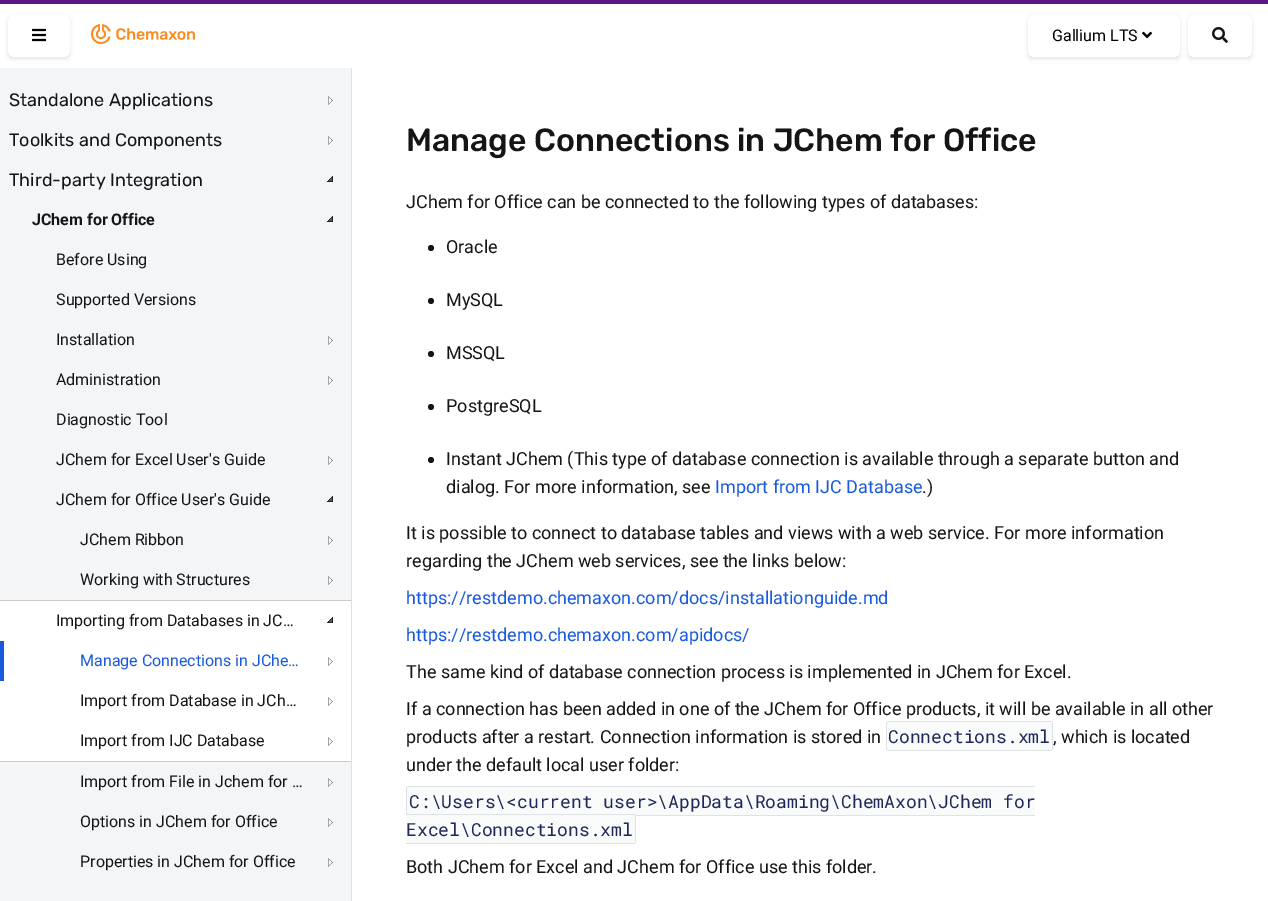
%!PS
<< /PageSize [1268 901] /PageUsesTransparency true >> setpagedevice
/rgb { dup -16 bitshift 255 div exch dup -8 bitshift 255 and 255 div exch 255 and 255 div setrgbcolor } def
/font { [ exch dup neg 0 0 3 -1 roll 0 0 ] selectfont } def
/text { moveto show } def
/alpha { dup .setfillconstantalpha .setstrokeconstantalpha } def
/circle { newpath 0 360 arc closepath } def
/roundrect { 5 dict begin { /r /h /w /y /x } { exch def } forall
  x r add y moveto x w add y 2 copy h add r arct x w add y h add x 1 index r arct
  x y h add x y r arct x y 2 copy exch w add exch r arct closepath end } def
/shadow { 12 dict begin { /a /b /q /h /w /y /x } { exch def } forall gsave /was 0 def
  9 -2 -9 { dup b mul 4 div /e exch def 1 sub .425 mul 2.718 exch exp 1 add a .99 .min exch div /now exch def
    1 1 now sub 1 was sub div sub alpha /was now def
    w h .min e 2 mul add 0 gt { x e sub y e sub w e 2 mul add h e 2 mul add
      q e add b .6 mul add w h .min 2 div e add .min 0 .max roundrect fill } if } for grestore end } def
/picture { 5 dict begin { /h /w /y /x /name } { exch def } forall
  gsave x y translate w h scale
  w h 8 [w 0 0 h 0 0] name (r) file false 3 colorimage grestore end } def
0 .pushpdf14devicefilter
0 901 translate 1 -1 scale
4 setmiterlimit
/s1 { /Roboto-Regular 16 font 16#000000 rgb } def
/s2 { /Rubik-Regular 18 font 16#131517 rgb } def
/s3 { /Roboto-Bold 16 font 16#131517 rgb } def
/s4 { /Roboto-Regular 16 font 16#131517 rgb } def
/s5 { /Roboto-Regular 16 font 16#185ADD rgb } def
/s6 { /Rubik-Medium 32 font 16#131517 rgb } def
/s7 { /Roboto-Regular 18 font 16#131517 rgb } def
/s8 { /Roboto-Regular 18 font 16#185ADD rgb } def
/s9 { /RobotoMono-Regular 18 font 16#1D285B rgb } def
16#FFFFFF rgb
0 0 1268 901 rectfill
16#5A1788 rgb
0 0 1268 4 rectfill
16#DAE1E7 rgb
351 64 1 837 rectfill
16#FFFFFF rgb
351 64 1 4 rectfill
gsave
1 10 moveto 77 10 lineto 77 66 lineto 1 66 lineto closepath 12 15 moveto 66 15 lineto 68 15 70 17 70 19 curveto 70 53 lineto 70 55 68 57 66 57 curveto 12 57 lineto 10 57 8 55 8 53 curveto 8 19 lineto 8 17 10 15 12 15 curveto closepath eoclip newpath
16#000000 rgb
8 17 62 42 4 2 0.1 shadow
grestore
(pic1.raw) 32 28 14 14 picture
(pic2.raw) 90 24 106 20 picture
gsave
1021 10 moveto 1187 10 lineto 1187 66 lineto 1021 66 lineto closepath 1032 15 moveto 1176 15 lineto 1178 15 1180 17 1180 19 curveto 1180 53 lineto 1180 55 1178 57 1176 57 curveto 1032 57 lineto 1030 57 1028 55 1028 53 curveto 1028 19 lineto 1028 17 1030 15 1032 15 curveto closepath eoclip newpath
16#000000 rgb
1028 17 152 42 4 2 0.1 shadow
grestore
s1
(Gallium LTS) 1052 41 text
(pic3.raw) 1142 31 10 8 picture
gsave
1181 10 moveto 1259 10 lineto 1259 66 lineto 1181 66 lineto closepath 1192 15 moveto 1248 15 lineto 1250 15 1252 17 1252 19 curveto 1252 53 lineto 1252 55 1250 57 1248 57 curveto 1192 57 lineto 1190 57 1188 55 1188 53 curveto 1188 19 lineto 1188 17 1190 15 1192 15 curveto closepath eoclip newpath
1188 17 64 42 4 2 0.1 shadow
grestore
(pic4.raw) 1212 27 16 16 picture
16#F4F5F7 rgb
0 68 351 833 rectfill
s2
(Standalone Applications) 9 106 text
(pic5.raw) 328 96 5 9 picture
(Toolkits and Components) 9 146 text
(pic5.raw) 328 136 5 9 picture
(Third-party Integration) 9 186 text
(pic6.raw) 327 176 6 6 picture
s3
(JChem for Office) 32 225 text
(pic6.raw) 327 216 6 6 picture
s4
(Before Using) 56 265 text
(Supported Versions) 56 305 text
(Installation) 56 345 text
(pic5.raw) 328 336 5 9 picture
(Administration) 56 385 text
(pic5.raw) 328 376 5 9 picture
(Diagnostic Tool) 56 425 text
(JChem for Excel User's Guide) 56 465 text
(pic5.raw) 328 456 5 9 picture
(JChem for Office User's Guide) 56 505 text
(pic6.raw) 327 496 6 6 picture
(JChem Ribbon) 80 545 text
(pic5.raw) 328 536 5 9 picture
(Working with Structures) 80 585 text
(pic5.raw) 328 576 5 9 picture
16#FFFFFF rgb
0 601 351 160 rectfill
16#CCCCCC rgb
0 600 351 1 rectfill
0 761 351 1 rectfill
s4
(Importing from Databases in JC…) 56 626 text
(pic7.raw) 327 617 6 6 picture
16#185ADD rgb
0 641 4 40 rectfill
(Manage Connections in JChe…) 80 666 text
(pic8.raw) 328 657 5 9 picture
s4
(Import from Database in JCh…) 80 706 text
(pic8.raw) 328 697 5 9 picture
(Import from IJC Database) 80 746 text
(pic8.raw) 328 737 5 9 picture
(Import from File in Jchem for …) 80 787 text
(pic5.raw) 328 778 5 9 picture
(Options in JChem for Office) 80 827 text
(pic5.raw) 328 818 5 9 picture
(Properties in JChem for Office) 80 867 text
(pic5.raw) 328 858 5 9 picture
s6
(Manage Connections in JChem for Office) 406 151 text
s7
(JChem for Office can be connected to the following types of databases:) 406 208 text
431 248 3 circle fill
(Oracle) 446 253 text
431 301 3 circle fill
(MySQL) 446 306 text
431 354 3 circle fill
(MSSQL) 446 359 text
431 407 3 circle fill
(PostgreSQL) 446 412 text
431 460 3 circle fill
(Instant JChem \(This type of database connection is available through a separate button and) 446 465 text
(dialog. For more information, see) 446 493 text
s8
(Import from IJC Database) 715 493 text
s7
(.\)) 922 493 text
(It is possible to connect to database tables and views with a web service. For more information) 406 539 text
(regarding the JChem web services, see the links below:) 406 567 text
s8
(https://restdemo.chemaxon.com/docs/installationguide.md) 406 604 text
(https://restdemo.chemaxon.com/apidocs/) 406 641 text
s7
(The same kind of database connection process is implemented in JChem for Excel.) 406 678 text
(If a connection has been added in one of the JChem for Office products, it will be available in all other) 406 715 text
(products after a restart. Connection information is stored in) 406 743 text
16#F9FAFA rgb
888 721 moveto 1007 721 lineto 1007 751 lineto 888 751 lineto 887 751 886 750 886 749 curveto 886 723 lineto 886 722 887 721 888 721 curveto closepath fill
1007 722 11 28 rectfill
1018 721 moveto 1051 721 lineto 1052 721 1053 722 1053 723 curveto 1053 749 lineto 1053 750 1052 751 1051 751 curveto 1018 751 lineto closepath fill
s9
(Connections.xml) 888 743 text
16#DFE2E4 rgb
887 721 131 1 rectfill
887 750 131 1 rectfill
886 722 1 28 rectfill
1018 721 34 1 rectfill
1052 722 1 28 rectfill
1018 750 34 1 rectfill
s7
(, which is located) 1053 743 text
(under the default local user folder:) 406 771 text
16#F9FAFA rgb
408 786 moveto 420 786 lineto 420 816 lineto 408 816 lineto 407 816 406 815 406 814 curveto 406 788 lineto 406 787 407 786 408 786 curveto closepath fill
420 787 97 27 rectfill
517 787 518 28 rectfill
s9
(C:\\Users\\<current user>\\AppData\\Roaming\\ChemAxon\\JChem for) 409 808 text
16#DFE2E4 rgb
407 786 628 1 rectfill
406 787 1 28 rectfill
636 815 399 1 rectfill
406 814 194 1 rectfill
16#F9FAFA rgb
600 814 moveto 634 814 lineto 635 814 636 815 636 816 curveto 636 842 lineto 636 843 635 844 634 844 curveto 600 844 lineto closepath fill
16#DFE2E4 rgb
600 814 35 1 rectfill
16#F9FAFA rgb
406 815 194 28 rectfill
s9
(Excel\\Connections.xml) 406 836 text
16#DFE2E4 rgb
406 843 194 1 rectfill
635 815 1 28 rectfill
600 843 35 1 rectfill
s7
(Both JChem for Excel and JChem for Office use this folder.) 406 873 text
.poppdf14devicefilter showpage
